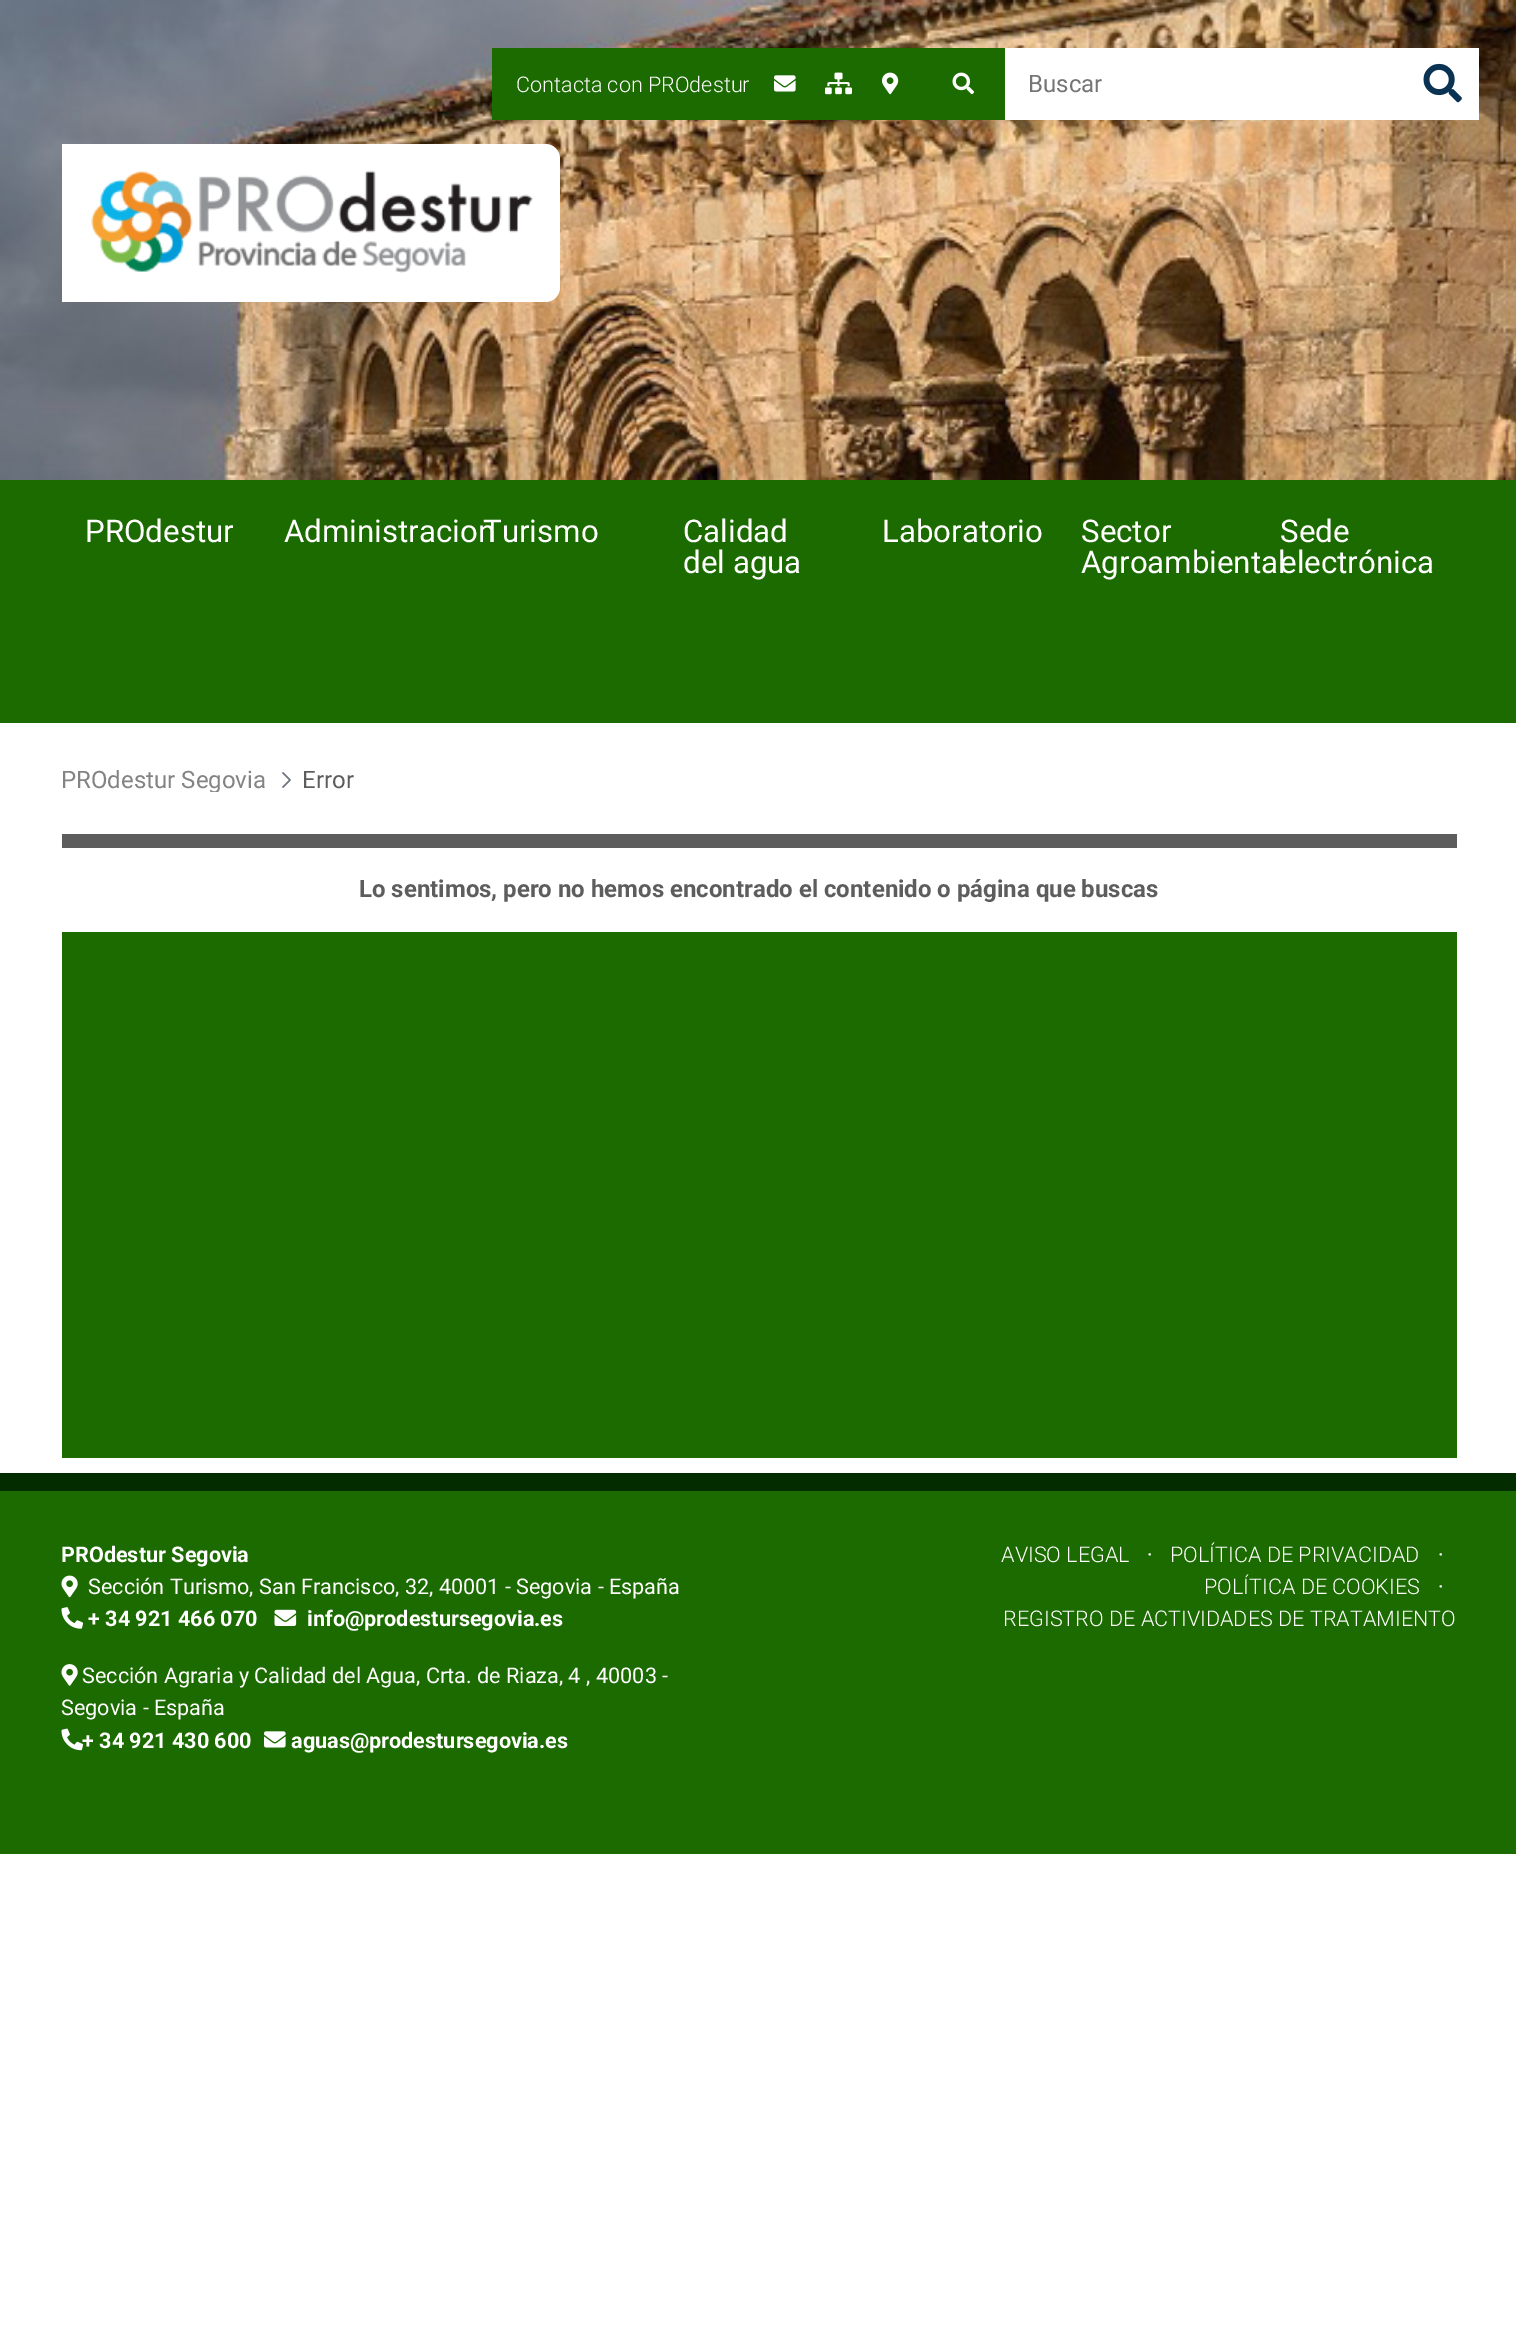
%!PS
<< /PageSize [1516 2330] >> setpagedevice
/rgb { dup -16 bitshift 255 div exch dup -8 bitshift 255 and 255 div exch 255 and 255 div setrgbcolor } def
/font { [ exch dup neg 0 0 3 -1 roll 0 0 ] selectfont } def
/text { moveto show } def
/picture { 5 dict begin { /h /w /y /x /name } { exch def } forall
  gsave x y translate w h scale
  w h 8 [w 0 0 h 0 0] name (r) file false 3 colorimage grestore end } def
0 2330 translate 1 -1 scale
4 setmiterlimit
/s1 { /Roboto-Light 21.6 font 16#FFFFFF rgb } def
/s2 { /Roboto-Regular 24 font 16#757575 rgb } def
/s3 { /Roboto-Regular 31.25 font 16#FFFFFF rgb } def
/s4 { /Roboto-Regular 24 font 16#838383 rgb } def
/s5 { /Roboto-Regular 24 font 16#5D5D5D rgb } def
/s6 { /Roboto-Bold 24 font 16#5D5D5D rgb } def
/s7 { /Roboto-Bold 21.6 font 16#FFFFFF rgb } def
/s8 { /Roboto-Regular 21.6 font 16#FFFFFF rgb } def
16#FFFFFF rgb
0 0 1516 2330 rectfill
(pic1.raw) 0 0 1516 480 picture
16#1C6B01 rgb
492 48 513 72 rectfill
s1
(Contacta con PROdestur) 516 92 text
(pic2.raw) 774 75 22 17 picture
(pic3.raw) 825 72 27 23 picture
(pic4.raw) 882 72 17 23 picture
(pic5.raw) 952 72 23 23 picture
1005 48 474 72 rectfill
s2
(Buscar) 1028 92 text
(pic6.raw) 1423 63 39 40 picture
16#FFFFFF rgb
62 144 moveto 545 144 lineto 553.5 144 560 150.5 560 159 curveto 560 287 lineto 560 295.5 553.5 302 545 302 curveto 62 302 lineto closepath fill
(pic7.raw) 91 170 442 103 picture
16#1C6B01 rgb
0 480 1516 243 rectfill
s3
(PROdestur) 85 542 text
(Administracion) 284 542 text
(Turismo) 483 542 text
(Calidad) 683 542 text
(del agua) 683 573 text
(Laboratorio) 882 542 text
(Sector) 1081 542 text
(Agroambiental) 1081 573 text
(Sede) 1280 542 text
(electrónica) 1280 573 text
gsave
62 768 204 24 rectclip
s4
(PROdestur Segovia) 61 788 text
grestore
(pic8.raw) 282 772 9 16 picture
s5
(Error) 302 788 text
62 834 1395 14 rectfill
s6
(Lo sentimos, pero no hemos encontrado el contenido o página que buscas) 359 897 text
16#1C6B01 rgb
62 932 1395 526 rectfill
16#032D00 rgb
0 1473 1516 18 rectfill
16#1C6B01 rgb
0 1491 1516 363 rectfill
s7
(PROdestur Segovia) 61 1562 text
(pic9.raw) 61 1575 17 23 picture
s8
(Sección Turismo, San Francisco, 32, 40001 - Segovia - España) 88 1594 text
(pic10.raw) 61 1607 23 22 picture
s7
(+ 34 921 466 070) 88 1626 text
(pic11.raw) 274 1609 23 17 picture
(info@prodestursegovia.es) 307 1626 text
(pic12.raw) 61 1664 17 22 picture
s8
(Sección Agraria y Calidad del Agua, Crta. de Riaza, 4 ,) 82 1683 text
(40003 -) 596 1683 text
(Segovia - España) 61 1715 text
(pic13.raw) 61 1728 23 23 picture
s7
(+ 34 921 430 600) 82 1748 text
(pic2.raw) 264 1731 22 17 picture
(aguas@prodestursegovia.es) 291 1748 text
s1
(AVISO LEGAL) 1001 1562 text
s8
(·) 1147 1562 text
s1
(POLÍTICA DE PRIVACIDAD) 1170 1562 text
s8
(·) 1438 1562 text
s1
(POLÍTICA DE COOKIES) 1204 1594 text
s8
(·) 1438 1594 text
s1
(REGISTRO DE ACTIVIDADES DE TRATAMIENTO) 1003 1626 text
showpage
